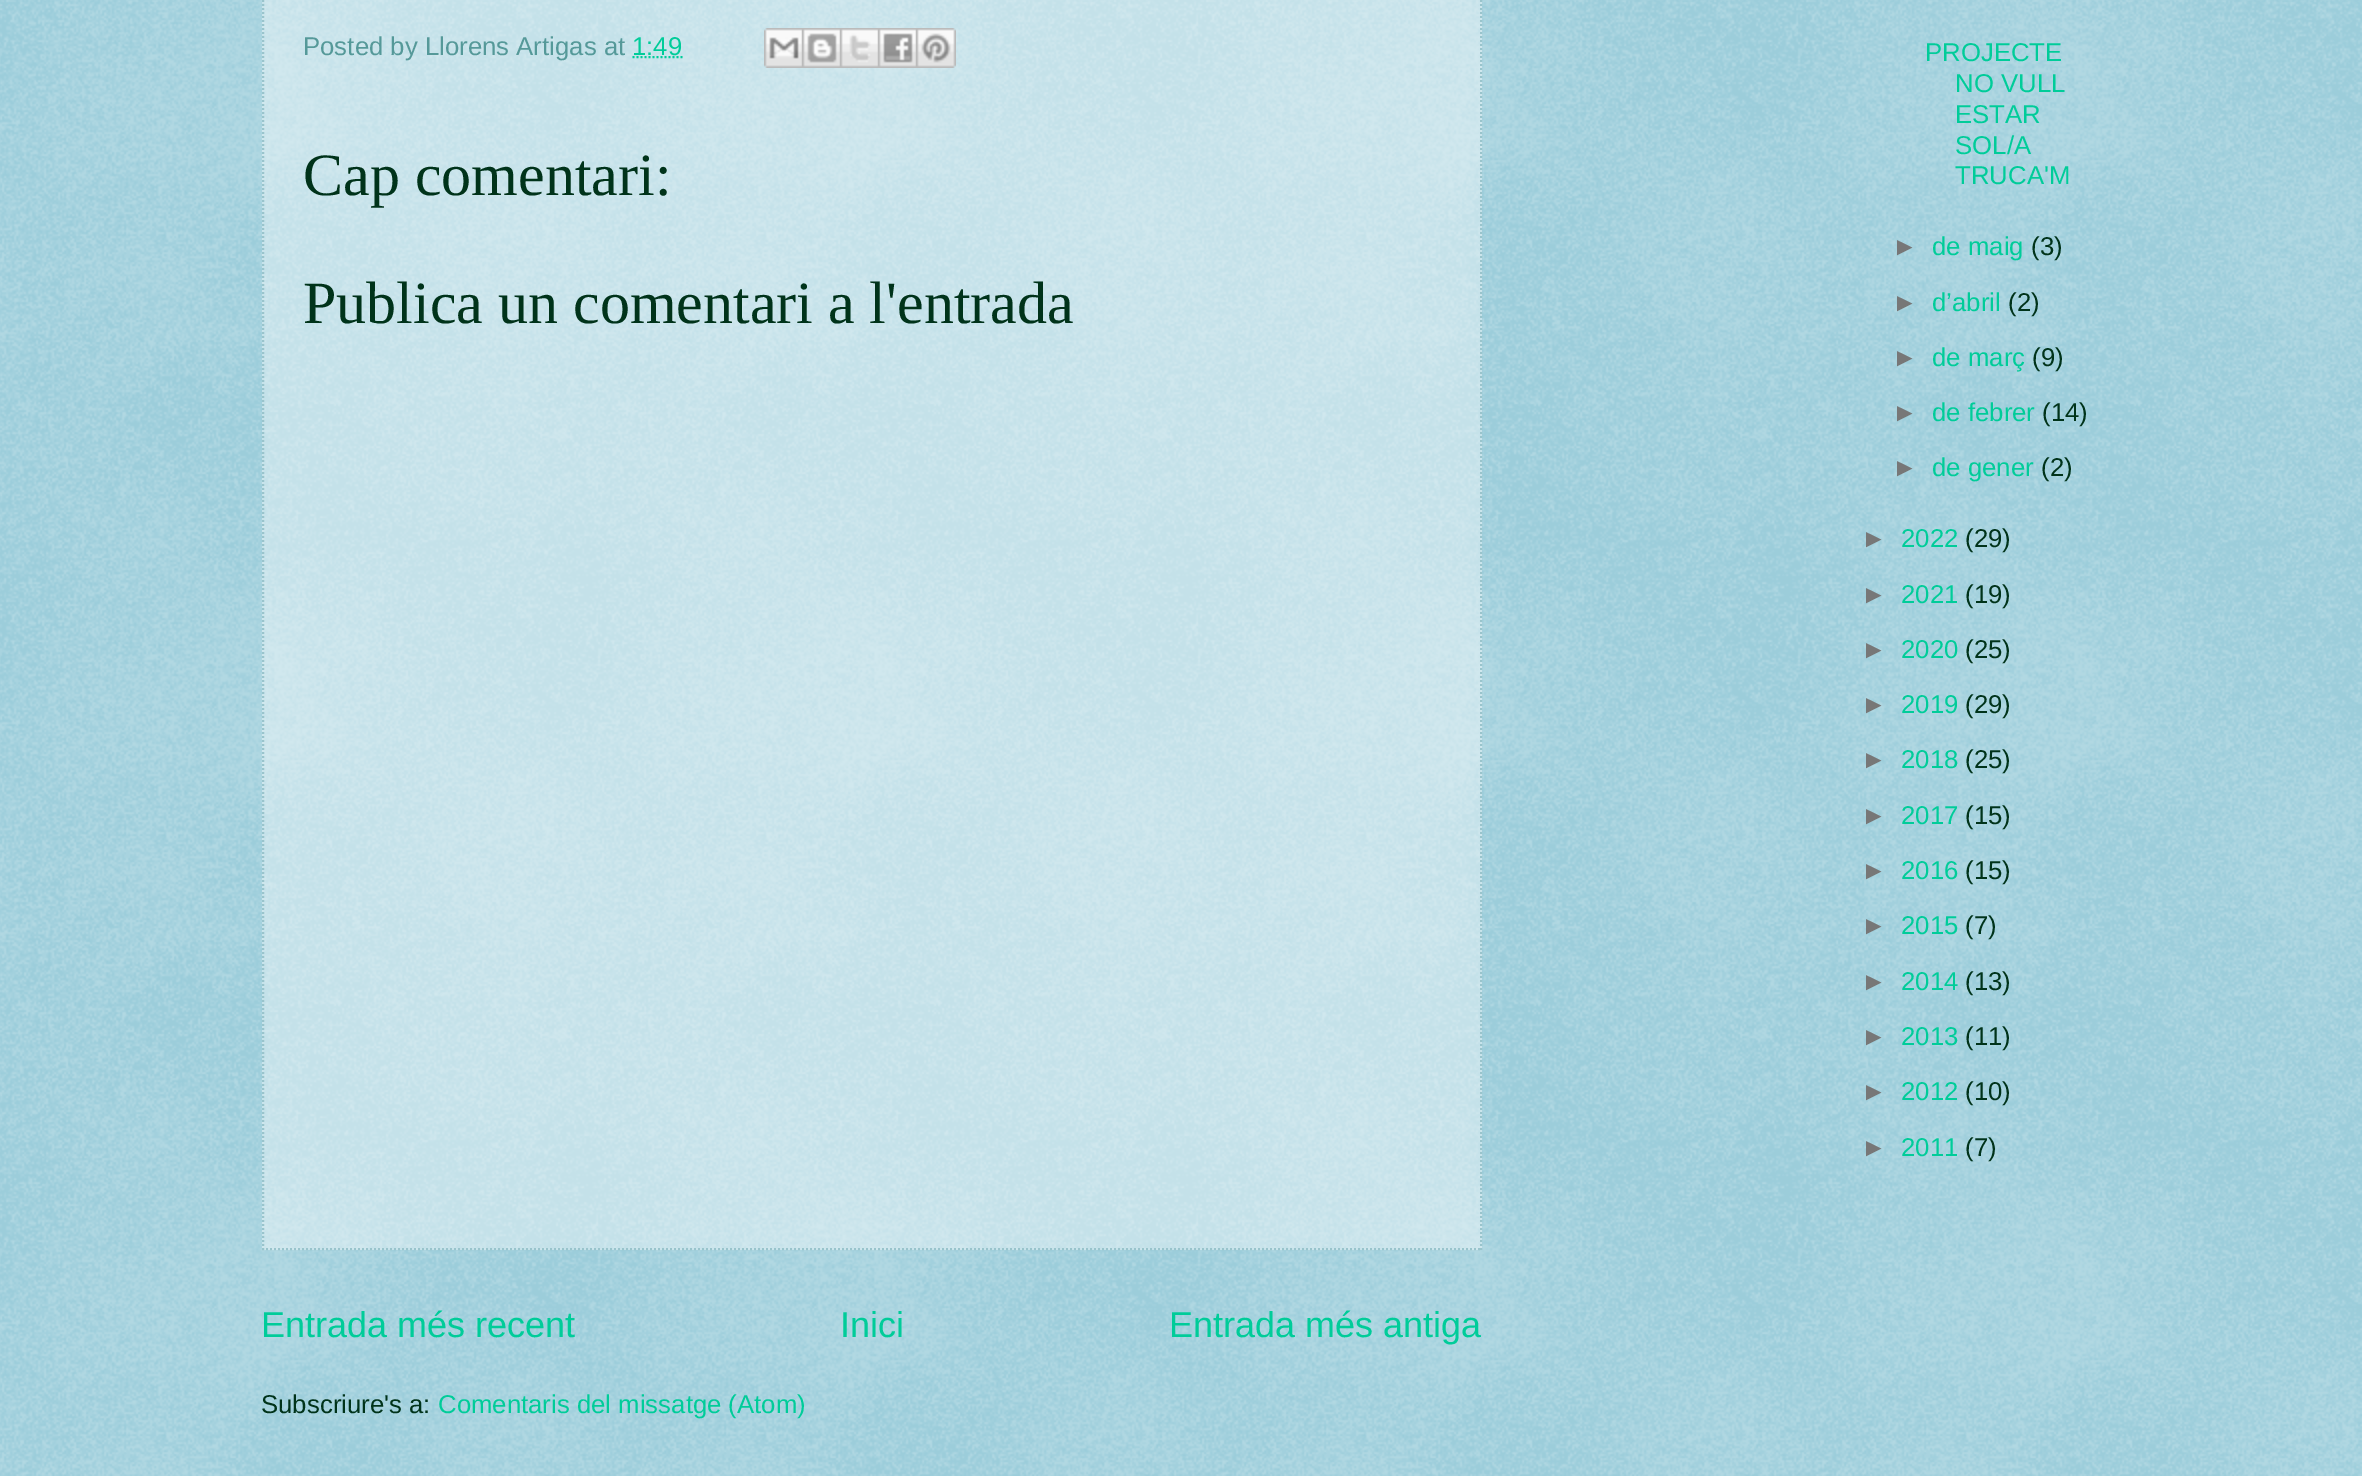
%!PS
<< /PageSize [2362 1476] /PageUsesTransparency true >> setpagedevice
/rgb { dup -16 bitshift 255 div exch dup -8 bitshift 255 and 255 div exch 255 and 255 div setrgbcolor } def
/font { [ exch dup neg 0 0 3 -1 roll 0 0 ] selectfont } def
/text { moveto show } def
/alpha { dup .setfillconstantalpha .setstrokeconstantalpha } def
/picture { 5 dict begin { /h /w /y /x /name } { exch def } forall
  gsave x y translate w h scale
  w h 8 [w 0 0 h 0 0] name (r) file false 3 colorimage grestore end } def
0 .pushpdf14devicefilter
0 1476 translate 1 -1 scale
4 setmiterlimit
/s1 { /LiberationSans-Regular 25.75 font 16#559999 rgb } def
/s2 { /LiberationSans-Regular 25.75 font 16#00CC99 rgb } def
/s3 { /LiberationSerif-Regular 60 font 16#00331A rgb } def
/s4 { /LiberationSans-Regular 36 font 16#00CC99 rgb } def
/s5 { /LiberationSans-Regular 25.75 font 16#00331A rgb } def
/s6 { /LiberationSans-Regular 25.75 font 16#777777 rgb } def
16#54A9C0 rgb
0 0 2362 1476 rectfill
(pic1.raw) 0 0 2362 1476 picture
0.4 alpha
16#FFFFFF rgb
262 0 1220 1250 rectfill
1 alpha
16#99C4CC rgb
2 setlinewidth
[2 2] 0 setdash
1481 -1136 moveto 1481 1250 lineto stroke
262 1249 moveto 1482 1249 lineto stroke
263 -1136 moveto 263 1250 lineto stroke
s1
(Posted by Llorens Artigas at) 303 55 text
s2
(1:49) 632 55 text
632.5 57 moveto 682.5 57 lineto stroke
(pic2.raw) 764 28 38 40 picture
(pic3.raw) 802 28 38 40 picture
(pic4.raw) 840 28 38 40 picture
(pic5.raw) 878 28 38 40 picture
(pic6.raw) 916 28 40 40 picture
s3
(Cap comentari:) 303 195 text
(Publica un comentari a l'entrada) 303 323 text
s4
(Entrada més recent) 261 1337 text
(Inici) 840 1337 text
(Entrada més antiga) 1169 1337 text
s5
(Subscriure's a:) 261 1413 text
s2
(Comentaris del missatge \(Atom\)) 438 1413 text
(PROJECTE) 1925 61 text
(NO VULL) 1955 92 text
(ESTAR) 1955 123 text
(SOL/A) 1955 154 text
(TRUCA'M) 1955 184 text
s6
(►) 1892 255 text
s2
(de maig) 1932 255 text
s5
(\(3\)) 2031 255 text
s6
(►) 1892 311 text
s2
(d’abril) 1932 311 text
s5
(\(2\)) 2008 311 text
s6
(►) 1892 366 text
s2
(de març) 1932 366 text
s5
(\(9\)) 2032 366 text
s6
(►) 1892 421 text
s2
(de febrer) 1932 421 text
s5
(\(14\)) 2042 421 text
s6
(►) 1892 476 text
s2
(de gener) 1932 476 text
s5
(\(2\)) 2041 476 text
s6
(►) 1861 547 text
s2
(2022) 1901 547 text
s5
(\(29\)) 1965 547 text
s6
(►) 1861 603 text
s2
(2021) 1901 603 text
s5
(\(19\)) 1965 603 text
s6
(►) 1861 658 text
s2
(2020) 1901 658 text
s5
(\(25\)) 1965 658 text
s6
(►) 1861 713 text
s2
(2019) 1901 713 text
s5
(\(29\)) 1965 713 text
s6
(►) 1861 768 text
s2
(2018) 1901 768 text
s5
(\(25\)) 1965 768 text
s6
(►) 1861 824 text
s2
(2017) 1901 824 text
s5
(\(15\)) 1965 824 text
s6
(►) 1861 879 text
s2
(2016) 1901 879 text
s5
(\(15\)) 1965 879 text
s6
(►) 1861 934 text
s2
(2015) 1901 934 text
s5
(\(7\)) 1965 934 text
s6
(►) 1861 990 text
s2
(2014) 1901 990 text
s5
(\(13\)) 1965 990 text
s6
(►) 1861 1045 text
s2
(2013) 1901 1045 text
s5
(\(11\)) 1965 1045 text
s6
(►) 1861 1100 text
s2
(2012) 1901 1100 text
s5
(\(10\)) 1965 1100 text
s6
(►) 1861 1156 text
s2
(2011) 1901 1156 text
s5
(\(7\)) 1965 1156 text
.poppdf14devicefilter showpage
